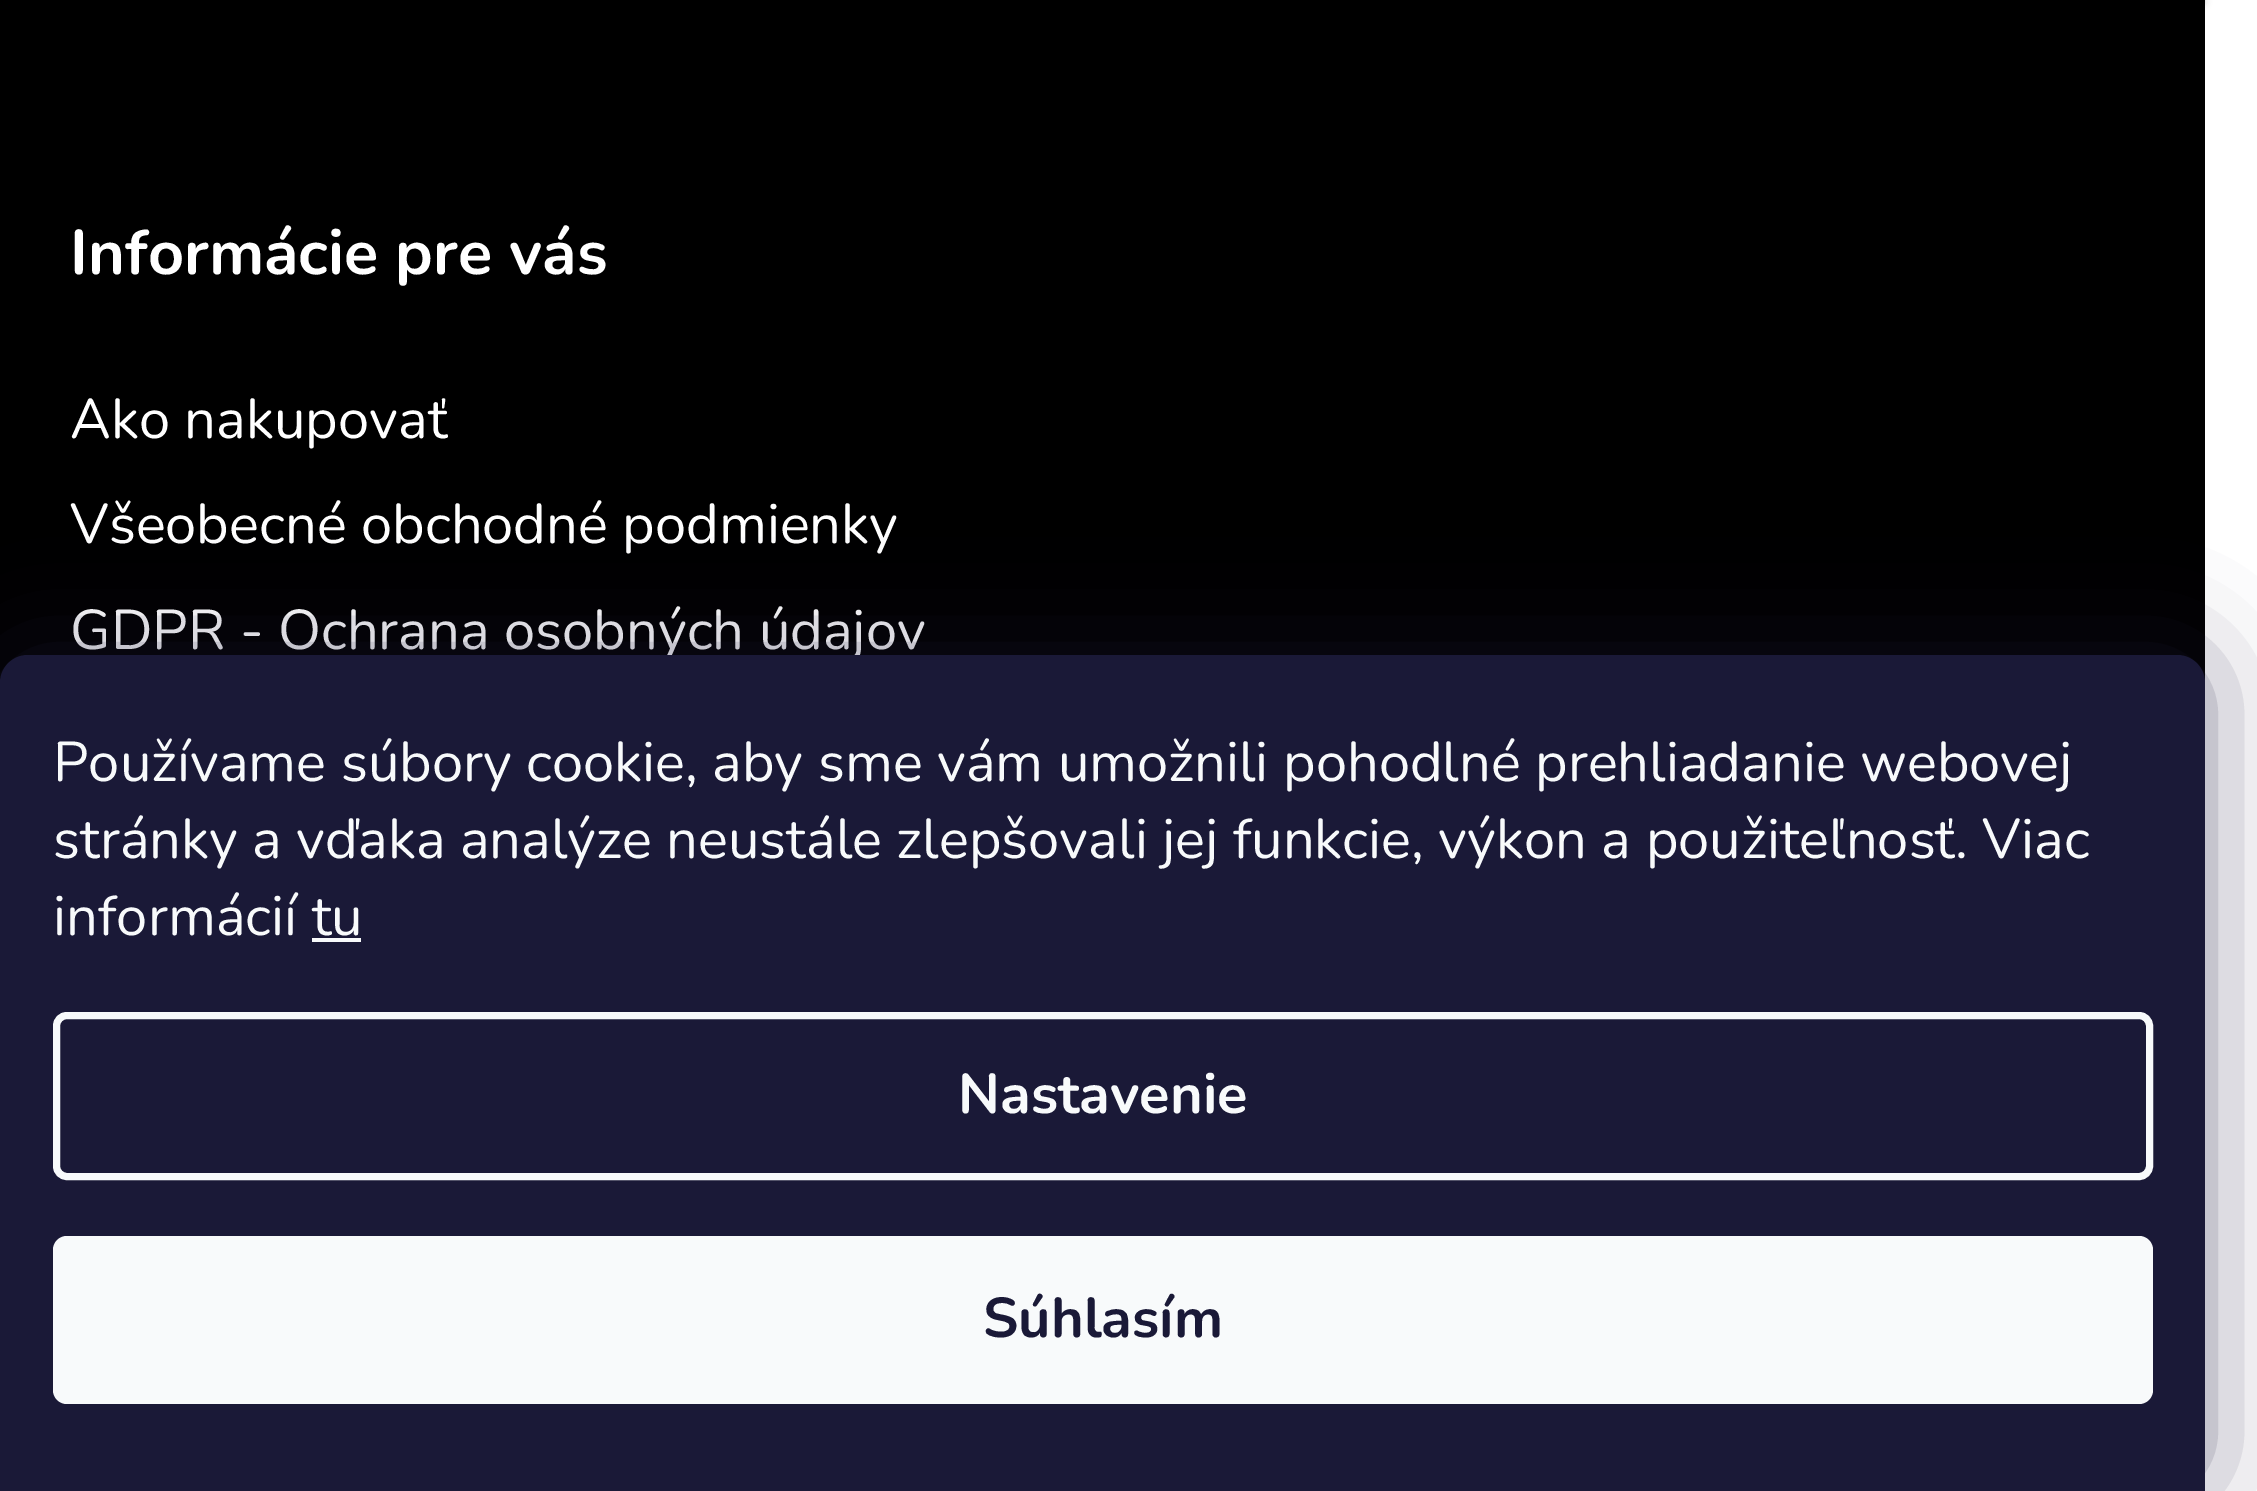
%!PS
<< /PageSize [2257 1491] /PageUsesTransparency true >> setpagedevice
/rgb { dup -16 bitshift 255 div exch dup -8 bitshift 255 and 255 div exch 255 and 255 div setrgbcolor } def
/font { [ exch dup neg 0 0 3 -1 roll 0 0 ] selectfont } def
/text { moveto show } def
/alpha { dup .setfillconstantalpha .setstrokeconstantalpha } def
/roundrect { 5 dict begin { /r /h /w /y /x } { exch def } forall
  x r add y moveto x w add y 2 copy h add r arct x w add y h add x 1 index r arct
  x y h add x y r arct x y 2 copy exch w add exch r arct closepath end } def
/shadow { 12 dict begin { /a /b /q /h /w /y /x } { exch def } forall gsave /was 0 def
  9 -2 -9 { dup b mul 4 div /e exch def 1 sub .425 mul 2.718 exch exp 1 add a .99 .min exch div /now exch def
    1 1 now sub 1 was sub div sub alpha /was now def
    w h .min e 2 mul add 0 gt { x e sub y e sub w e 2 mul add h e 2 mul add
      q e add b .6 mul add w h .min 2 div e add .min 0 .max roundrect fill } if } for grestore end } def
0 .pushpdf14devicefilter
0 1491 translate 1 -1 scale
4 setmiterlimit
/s1 { /Nunito-Bold 63 font 16#FFFFFF rgb } def
/s2 { /Nunito-Regular 56 font 16#FFFFFF rgb } def
/s3 { /Nunito-Regular 56 font 16#F8FAFB rgb } def
/s4 { /Nunito-Bold 56 font 16#F8FAFB rgb } def
/s5 { /Nunito-Bold 56 font 16#1A1937 rgb } def
16#FFFFFF rgb
0 0 2257 1491 rectfill
16#000000 rgb
0 0 2205 683 rectfill
0 -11 2205 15 0 3.5 0.16 shadow
s1
(Informácie pre vás) 70 274 text
s2
(Ako nakupovať) 70 438 text
(Všeobecné obchodné podmienky) 70 543 text
(GDPR - Ochrana osobných údajov) 70 649 text
16#1B1939 rgb
0 655 2205 836 28 52.5 0.5 shadow
16#1A1937 rgb
28 655 moveto 2177 655 lineto 2192.5 655 2205 667.5 2205 683 curveto 2205 1491 lineto 0 1491 lineto 0 683 lineto 0 667.5 12.5 655 28 655 curveto closepath fill
s3
(Používame súbory cookie, aby sme vám umožnili pohodlné prehliadanie webovej) 53 781 text
(stránky a vďaka analýze neustále zlepšovali jej funkcie, výkon a použiteľnosť. Viac) 53 858 text
(informácií tu) 53 935 text
312 938 49 4 rectfill
7 setlinewidth
56.5 1015.5 2093 161 10.5 roundrect stroke
s4
(Nastavenie) 958 1113 text
53 1236 2100 168 14 roundrect fill
s5
(Súhlasím) 983 1337 text
.poppdf14devicefilter showpage
